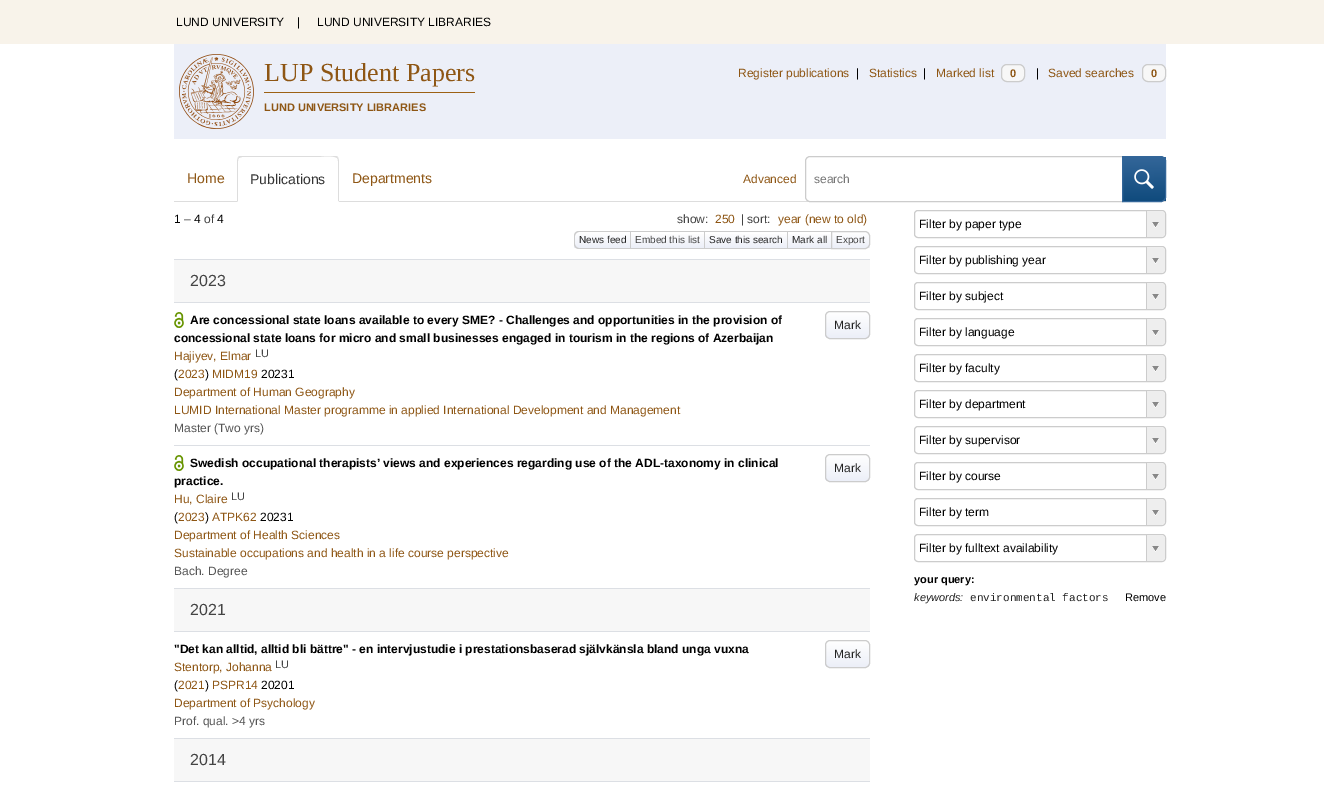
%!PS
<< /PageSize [1324 785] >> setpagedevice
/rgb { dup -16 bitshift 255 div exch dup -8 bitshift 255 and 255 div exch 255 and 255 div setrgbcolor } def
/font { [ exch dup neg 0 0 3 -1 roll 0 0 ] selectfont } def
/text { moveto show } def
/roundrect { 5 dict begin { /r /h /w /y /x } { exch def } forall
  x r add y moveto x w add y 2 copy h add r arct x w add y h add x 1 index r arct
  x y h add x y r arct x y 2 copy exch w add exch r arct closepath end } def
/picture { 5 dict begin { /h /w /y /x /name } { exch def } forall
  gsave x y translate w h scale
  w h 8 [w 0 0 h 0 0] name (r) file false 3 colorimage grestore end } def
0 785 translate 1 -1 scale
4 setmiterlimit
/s1 { /LiberationSans-Regular 12 font 16#000000 rgb } def
/s2 { /LiberationSerif-Regular 26 font 16#8E5614 rgb } def
/s3 { /LiberationSans-Bold 11 font 16#8E5614 rgb } def
/s4 { /LiberationSans-Regular 12 font 16#8E5614 rgb } def
/s5 { /LiberationSans-Regular 14 font 16#8E5614 rgb } def
/s6 { /LiberationSans-Regular 14 font 16#333333 rgb } def
/s7 { /LiberationSans-Regular 12 font 16#757575 rgb } def
/s8 { /LiberationSans-Regular 12 font 16#444444 rgb } def
/s9 { /LiberationSans-Regular 10 font 16#222222 rgb } def
/s10 { /LiberationSans-Regular 10 font 16#444444 rgb } def
/s11 { /LiberationSans-Regular 16 font 16#444444 rgb } def
/s12 { /LiberationSans-Bold 12 font 16#000000 rgb } def
/s13 { /LiberationSans-Regular 12 font 16#222222 rgb } def
/s14 { /LiberationSans-Regular 11 font 16#444444 rgb } def
/s15 { /LiberationSans-Regular 12 font 16#555555 rgb } def
/s16 { /LiberationSans-Bold 11 font 16#000000 rgb } def
/s17 { /LiberationSans-Italic 11 font 16#222222 rgb } def
/s18 { /LiberationMono-Regular 11 font 16#222222 rgb } def
/s19 { /LiberationSans-Regular 11 font 16#000000 rgb } def
16#FFFFFF rgb
0 0 1324 785 rectfill
16#F8F3EA rgb
0 0 1324 44 rectfill
s1
(LUND UNIVERSITY) 176 26 text
(|) 297 26 text
(LUND UNIVERSITY LIBRARIES) 317 26 text
16#ECEFF8 rgb
174 44 992 95 rectfill
(pic1.raw) 179 54 75 75 picture
s2
(LUP Student Papers) 264 81 text
16#9C6114 rgb
264 92 211 1 rectfill
s3
(LUND UNIVERSITY LIBRARIES) 264 111 text
s4
(Register publications) 738 77 text
s1
(|) 856 77 text
s4
(Statistics) 869 77 text
s1
(|) 923 77 text
s4
(Marked list) 936 77 text
16#F7F7F7 rgb
1001.5 64.5 23 17 5.5 roundrect gsave fill grestore
16#CCCCCC rgb
stroke
s3
(0) 1010 77 text
s1
(|) 1036 77 text
s4
(Saved searches) 1048 77 text
16#F7F7F7 rgb
1142.5 64.5 23 17 5.5 roundrect gsave fill grestore
16#CCCCCC rgb
stroke
s3
(0) 1151 77 text
16#DDDDDD rgb
174 201 992 1 rectfill
s5
(Home) 187 183 text
16#FFFFFF rgb
242 156 moveto 334 156 lineto 337 156 339 158 339 161 curveto 339 202 lineto 237 202 lineto 237 161 lineto 237 158 239 156 242 156 curveto closepath fill
16#DDDDDD rgb
242 156 moveto 240 156 239 156 238 157 curveto 239 158 lineto 242 157 lineto 319 157 lineto 319 157 333 155 337 158 curveto 338 157 lineto 337 156 336 156 334 156 curveto closepath fill
339 202 moveto 339 161 lineto 339 160 338 158 338 157 curveto 337 158 lineto 338 159 338 160 338 161 curveto 338 201 lineto closepath fill
16#FFFFFF rgb
339 202 moveto 338 201 lineto 238 201 lineto 237 202 lineto closepath fill
16#DDDDDD rgb
237 202 moveto 238 201 lineto 238 161 lineto 238 160 238 159 239 158 curveto 238 157 lineto 238 158 237 160 237 161 curveto closepath fill
s6
(Publications) 250 184 text
s5
(Departments) 352 183 text
s4
(Advanced) 743 183 text
16#FFFFFF rgb
810 156.5 moveto 1122.5 156.5 lineto 1122.5 201.5 lineto 810 201.5 lineto 807.5 201.5 805.5 199.5 805.5 197 curveto 805.5 161 lineto 805.5 158.5 807.5 156.5 810 156.5 curveto closepath gsave fill grestore
16#CCCCCC rgb
stroke
s7
(search) 814 183 text
gsave
1122 156 moveto 1161 156 lineto 1164 156 1166 158 1166 161 curveto 1166 197 lineto 1166 200 1164 202 1161 202 curveto 1122 202 lineto closepath clip newpath
gsave 1123 157 moveto 1166 157 lineto 1166 201 lineto 1123 201 lineto closepath clip newpath
<< /ShadingType 2 /ColorSpace /DeviceRGB /Coords [1144 157 1144 201] /Extend [true true] /Function << /FunctionType 2 /Domain [0 1] /C0 [0.2 0.4 0.6] /C1 [0.063 0.294 0.49] /N 1 >> >> shfill grestore
grestore
16#336699 rgb
1122.5 156.5 moveto 1161 156.5 lineto 1163.5 156.5 1165.5 158.5 1165.5 161 curveto 1165.5 197 lineto 1165.5 199.5 1163.5 201.5 1161 201.5 curveto 1122.5 201.5 lineto closepath stroke
(pic2.raw) 1134 169 20 20 picture
s1
(1) 174 223 text
s8
(–) 184 223 text
s1
(4) 194 223 text
s8
(of) 204 223 text
s1
(4) 217 223 text
s8
(show:) 677 223 text
s4
(250) 715 223 text
s8
(| sort:) 741 223 text
s4
(year \(new to old\)) 778 223 text
gsave
579 231 moveto 630 231 lineto 630 249 lineto 579 249 lineto 576 249 574 247 574 244 curveto 574 236 lineto 574 233 576 231 579 231 curveto closepath clip newpath
gsave 574 232 moveto 630 232 lineto 630 248 lineto 574 248 lineto closepath clip newpath
<< /ShadingType 2 /ColorSpace /DeviceRGB /Coords [603 232 603 248] /Extend [true true] /Function << /FunctionType 2 /Domain [0 1] /C0 [1 1 1] /C1 [0.925 0.937 0.973] /N 1 >> >> shfill grestore
grestore
16#CCCCCC rgb
579 231 moveto 630 231 lineto 630 249 lineto 579 249 lineto 576 249 574 247 574 244 curveto 574 236 lineto 574 233 576 231 579 231 curveto closepath 579 232 moveto 630 232 lineto 630 248 lineto 579 248 lineto 577 248 575 246 575 244 curveto 575 236 lineto 575 234 577 232 579 232 curveto closepath eofill
s9
(News feed) 579 243 text
gsave 631 234 moveto 704 234 lineto 704 248 lineto 631 248 lineto closepath clip newpath
<< /ShadingType 2 /ColorSpace /DeviceRGB /Coords [668 232 668 248] /Extend [true true] /Function << /FunctionType 2 /Domain [0 1] /C0 [1 1 1] /C1 [0.925 0.937 0.973] /N 1 >> >> shfill grestore
16#CCCCCC rgb
630 231 201 1 rectfill
630 248 201 1 rectfill
630 231 1 18 rectfill
s10
(Embed this list) 635 243 text
gsave 705 234 moveto 787 234 lineto 787 248 lineto 705 248 lineto closepath clip newpath
<< /ShadingType 2 /ColorSpace /DeviceRGB /Coords [746 232 746 248] /Extend [true true] /Function << /FunctionType 2 /Domain [0 1] /C0 [1 1 1] /C1 [0.925 0.937 0.973] /N 1 >> >> shfill grestore
16#CCCCCC rgb
704 231 1 18 rectfill
s9
(Save this search) 709 243 text
gsave 788 234 moveto 831 234 lineto 831 248 lineto 788 248 lineto closepath clip newpath
<< /ShadingType 2 /ColorSpace /DeviceRGB /Coords [810 232 810 248] /Extend [true true] /Function << /FunctionType 2 /Domain [0 1] /C0 [1 1 1] /C1 [0.925 0.937 0.973] /N 1 >> >> shfill grestore
16#CCCCCC rgb
787 231 1 18 rectfill
s9
(Mark all) 792 243 text
gsave
831 231 moveto 865 231 lineto 868 231 870 233 870 236 curveto 870 244 lineto 870 247 868 249 865 249 curveto 831 249 lineto closepath clip newpath
gsave 832 232 moveto 870 232 lineto 870 248 lineto 832 248 lineto closepath clip newpath
<< /ShadingType 2 /ColorSpace /DeviceRGB /Coords [851 232 851 248] /Extend [true true] /Function << /FunctionType 2 /Domain [0 1] /C0 [1 1 1] /C1 [0.925 0.937 0.973] /N 1 >> >> shfill grestore
grestore
16#CCCCCC rgb
831.5 231.5 moveto 865 231.5 lineto 867.5 231.5 869.5 233.5 869.5 236 curveto 869.5 244 lineto 869.5 246.5 867.5 248.5 865 248.5 curveto 831.5 248.5 lineto closepath stroke
s10
(Export) 836 243 text
16#DCDFE4 rgb
174 259 696 1 rectfill
16#F7F7F7 rgb
174 260 696 42 rectfill
16#DCDFE4 rgb
174 302 696 1 rectfill
s11
(2023) 190 286 text
(pic3.raw) 174 312 10 16 picture
16#DCDFE4 rgb
174 445 696 1 rectfill
s12
(Are concessional state loans available to every SME? - Challenges and opportunities in the provision of) 190 324 text
(concessional state loans for micro and small businesses engaged in tourism in the regions of Azerbaijan) 174 342 text
gsave
825 311 45 28 5 roundrect clip newpath
gsave 825 312 moveto 870 312 lineto 870 338 lineto 825 338 lineto closepath clip newpath
<< /ShadingType 2 /ColorSpace /DeviceRGB /Coords [848 312 848 338] /Extend [true true] /Function << /FunctionType 2 /Domain [0 1] /C0 [1 1 1] /C1 [0.925 0.937 0.973] /N 1 >> >> shfill grestore
grestore
16#CCCCCC rgb
825.5 311.5 44 27 4.5 roundrect stroke
s13
(Mark) 834 329 text
s4
(Hajiyev, Elmar) 174 360 text
s14
(LU) 255 357 text
s1
(\() 174 378 text
s4
(2023) 178 378 text
s1
(\)) 205 378 text
s4
(MIDM19) 212 378 text
s1
(20231) 261 378 text
s4
(Department of Human Geography) 174 396 text
(LUMID International Master programme in applied International Development and Management) 174 414 text
s15
(Master \(Two yrs\)) 174 432 text
(pic3.raw) 174 455 10 16 picture
16#DCDFE4 rgb
174 588 696 1 rectfill
s12
(Swedish occupational therapists’ views and experiences regarding use of the ADL-taxonomy in clinical) 190 467 text
(practice.) 174 485 text
gsave
825 454 45 28 5 roundrect clip newpath
gsave 825 455 moveto 870 455 lineto 870 481 lineto 825 481 lineto closepath clip newpath
<< /ShadingType 2 /ColorSpace /DeviceRGB /Coords [848 455 848 481] /Extend [true true] /Function << /FunctionType 2 /Domain [0 1] /C0 [1 1 1] /C1 [0.925 0.937 0.973] /N 1 >> >> shfill grestore
grestore
16#CCCCCC rgb
825.5 454.5 44 27 4.5 roundrect stroke
s13
(Mark) 834 472 text
s4
(Hu, Claire) 174 503 text
s14
(LU) 231 500 text
s1
(\() 174 521 text
s4
(2023) 178 521 text
s1
(\)) 205 521 text
s4
(ATPK62) 212 521 text
s1
(20231) 260 521 text
s4
(Department of Health Sciences) 174 539 text
(Sustainable occupations and health in a life course perspective) 174 557 text
s15
(Bach. Degree) 174 575 text
16#F7F7F7 rgb
174 589 696 42 rectfill
16#DCDFE4 rgb
174 631 696 1 rectfill
s11
(2021) 190 615 text
16#DCDFE4 rgb
174 738 696 1 rectfill
s12
("Det kan alltid, alltid bli bättre" - en intervjustudie i prestationsbaserad självkänsla bland unga vuxna) 174 653 text
gsave
825 640 45 28 5 roundrect clip newpath
gsave 825 641 moveto 870 641 lineto 870 667 lineto 825 667 lineto closepath clip newpath
<< /ShadingType 2 /ColorSpace /DeviceRGB /Coords [848 641 848 667] /Extend [true true] /Function << /FunctionType 2 /Domain [0 1] /C0 [1 1 1] /C1 [0.925 0.937 0.973] /N 1 >> >> shfill grestore
grestore
16#CCCCCC rgb
825.5 640.5 44 27 4.5 roundrect stroke
s13
(Mark) 834 658 text
s4
(Stentorp, Johanna) 174 671 text
s14
(LU) 275 668 text
s1
(\() 174 689 text
s4
(2021) 178 689 text
s1
(\)) 205 689 text
s4
(PSPR14) 212 689 text
s1
(20201) 261 689 text
s4
(Department of Psychology) 174 707 text
s15
(Prof. qual. >4 yrs) 174 725 text
16#F7F7F7 rgb
174 739 696 42 rectfill
16#DCDFE4 rgb
174 781 696 1 rectfill
s11
(2014) 190 765 text
16#CCCCCC rgb
914.5 210.5 251 27 3.5 roundrect stroke
s1
(Filter by paper type) 919 228 text
gsave
915 211 250 26 3 roundrect clip newpath
16#EEEEEE rgb
1146 211 moveto 1161 211 lineto 1163 211 1165 213 1165 215 curveto 1165 233 lineto 1165 235 1163 237 1161 237 curveto 1146 237 lineto closepath fill
grestore
16#CCCCCC rgb
1146 211 1 26 rectfill
(pic4.raw) 1152 222 7 6 picture
914.5 246.5 251 27 3.5 roundrect stroke
s1
(Filter by publishing year) 919 264 text
gsave
915 247 250 26 3 roundrect clip newpath
16#EEEEEE rgb
1146 247 moveto 1161 247 lineto 1163 247 1165 249 1165 251 curveto 1165 269 lineto 1165 271 1163 273 1161 273 curveto 1146 273 lineto closepath fill
grestore
16#CCCCCC rgb
1146 247 1 26 rectfill
(pic4.raw) 1152 258 7 6 picture
914.5 282.5 251 27 3.5 roundrect stroke
s1
(Filter by subject) 919 300 text
gsave
915 283 250 26 3 roundrect clip newpath
16#EEEEEE rgb
1146 283 moveto 1161 283 lineto 1163 283 1165 285 1165 287 curveto 1165 305 lineto 1165 307 1163 309 1161 309 curveto 1146 309 lineto closepath fill
grestore
16#CCCCCC rgb
1146 283 1 26 rectfill
(pic4.raw) 1152 294 7 6 picture
914.5 318.5 251 27 3.5 roundrect stroke
s1
(Filter by language) 919 336 text
gsave
915 319 250 26 3 roundrect clip newpath
16#EEEEEE rgb
1146 319 moveto 1161 319 lineto 1163 319 1165 321 1165 323 curveto 1165 341 lineto 1165 343 1163 345 1161 345 curveto 1146 345 lineto closepath fill
grestore
16#CCCCCC rgb
1146 319 1 26 rectfill
(pic4.raw) 1152 330 7 6 picture
914.5 354.5 251 27 3.5 roundrect stroke
s1
(Filter by faculty) 919 372 text
gsave
915 355 250 26 3 roundrect clip newpath
16#EEEEEE rgb
1146 355 moveto 1161 355 lineto 1163 355 1165 357 1165 359 curveto 1165 377 lineto 1165 379 1163 381 1161 381 curveto 1146 381 lineto closepath fill
grestore
16#CCCCCC rgb
1146 355 1 26 rectfill
(pic4.raw) 1152 366 7 6 picture
914.5 390.5 251 27 3.5 roundrect stroke
s1
(Filter by department) 919 408 text
gsave
915 391 250 26 3 roundrect clip newpath
16#EEEEEE rgb
1146 391 moveto 1161 391 lineto 1163 391 1165 393 1165 395 curveto 1165 413 lineto 1165 415 1163 417 1161 417 curveto 1146 417 lineto closepath fill
grestore
16#CCCCCC rgb
1146 391 1 26 rectfill
(pic4.raw) 1152 402 7 6 picture
914.5 426.5 251 27 3.5 roundrect stroke
s1
(Filter by supervisor) 919 444 text
gsave
915 427 250 26 3 roundrect clip newpath
16#EEEEEE rgb
1146 427 moveto 1161 427 lineto 1163 427 1165 429 1165 431 curveto 1165 449 lineto 1165 451 1163 453 1161 453 curveto 1146 453 lineto closepath fill
grestore
16#CCCCCC rgb
1146 427 1 26 rectfill
(pic4.raw) 1152 438 7 6 picture
914.5 462.5 251 27 3.5 roundrect stroke
s1
(Filter by course) 919 480 text
gsave
915 463 250 26 3 roundrect clip newpath
16#EEEEEE rgb
1146 463 moveto 1161 463 lineto 1163 463 1165 465 1165 467 curveto 1165 485 lineto 1165 487 1163 489 1161 489 curveto 1146 489 lineto closepath fill
grestore
16#CCCCCC rgb
1146 463 1 26 rectfill
(pic4.raw) 1152 474 7 6 picture
914.5 498.5 251 27 3.5 roundrect stroke
s1
(Filter by term) 919 516 text
gsave
915 499 250 26 3 roundrect clip newpath
16#EEEEEE rgb
1146 499 moveto 1161 499 lineto 1163 499 1165 501 1165 503 curveto 1165 521 lineto 1165 523 1163 525 1161 525 curveto 1146 525 lineto closepath fill
grestore
16#CCCCCC rgb
1146 499 1 26 rectfill
(pic4.raw) 1152 510 7 6 picture
914.5 534.5 251 27 3.5 roundrect stroke
s1
(Filter by fulltext availability) 919 552 text
gsave
915 535 250 26 3 roundrect clip newpath
16#EEEEEE rgb
1146 535 moveto 1161 535 lineto 1163 535 1165 537 1165 539 curveto 1165 557 lineto 1165 559 1163 561 1161 561 curveto 1146 561 lineto closepath fill
grestore
16#CCCCCC rgb
1146 535 1 26 rectfill
(pic4.raw) 1152 546 7 6 picture
s16
(your query:) 914 583 text
s17
(keywords:) 914 601 text
s18
(environmental factors) 970 601 text
s19
(Remove) 1125 601 text
showpage
